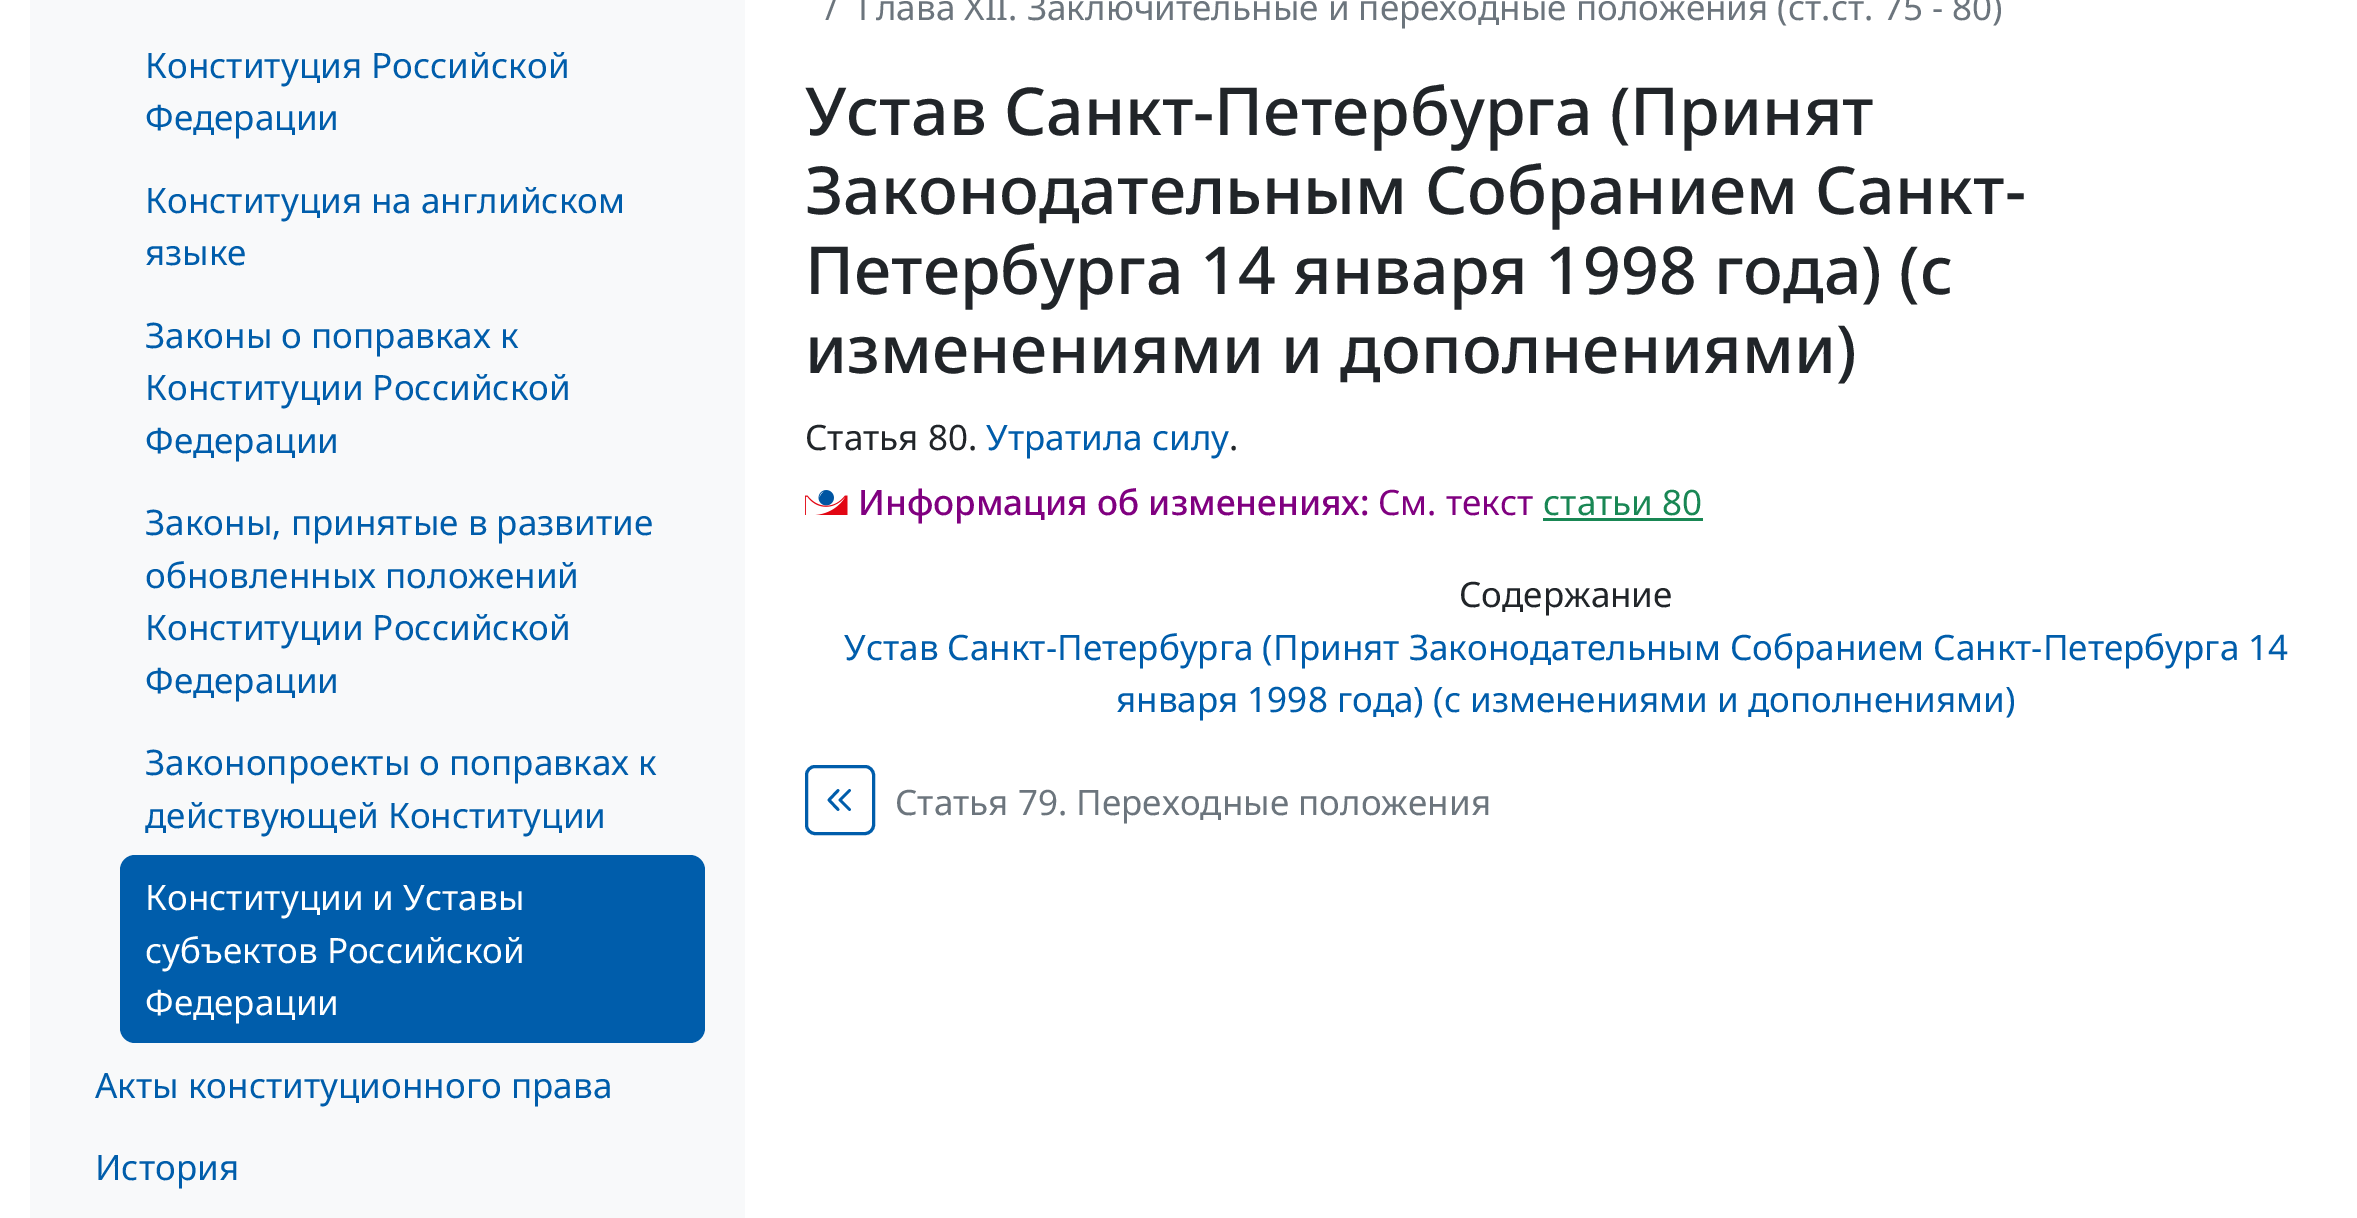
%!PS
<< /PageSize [2357 1218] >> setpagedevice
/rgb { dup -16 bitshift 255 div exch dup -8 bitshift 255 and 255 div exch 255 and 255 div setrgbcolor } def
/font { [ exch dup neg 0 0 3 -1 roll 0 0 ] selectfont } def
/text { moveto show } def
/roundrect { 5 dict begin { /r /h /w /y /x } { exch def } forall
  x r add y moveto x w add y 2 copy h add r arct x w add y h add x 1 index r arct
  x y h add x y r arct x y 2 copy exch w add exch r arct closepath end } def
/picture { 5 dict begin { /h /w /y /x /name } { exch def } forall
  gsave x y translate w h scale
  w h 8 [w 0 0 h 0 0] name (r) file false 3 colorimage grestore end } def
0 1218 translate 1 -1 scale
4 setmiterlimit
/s1 { /NotoSans-Regular 35 font 16#005DAB rgb } def
/s2 { /NotoSans-Regular 35 font 16#FFFFFF rgb } def
/s3 { /NotoSans-Regular 35 font 16#6C757D rgb } def
/s4 { /NotoSans-Medium 66.1 font 16#212529 rgb } def
/s5 { /NotoSans-Regular 35 font 16#212529 rgb } def
/s6 { /NotoSans-Medium 35 font 16#800080 rgb } def
/s7 { /NotoSans-Regular 35 font 16#800080 rgb } def
/s8 { /NotoSans-Regular 35 font 16#198754 rgb } def
16#FFFFFF rgb
0 0 2357 1218 rectfill
16#F8F9FA rgb
30 0 715 1218 rectfill
s1
(Конституция Российской) 145 78 text
(Федерации) 145 130 text
(Конституция на английском) 145 213 text
(языке) 145 265 text
(Законы о поправках к) 145 348 text
(Конституции Российской) 145 400 text
(Федерации) 145 453 text
(Законы, принятые в развитие) 145 535 text
(обновленных положений) 145 588 text
(Конституции Российской) 145 640 text
(Федерации) 145 693 text
(Законопроекты о поправках к) 145 775 text
(действующей Конституции) 145 828 text
120 855 585 188 15 roundrect fill
s2
(Конституции и Уставы) 145 910 text
(субъектов Российской) 145 963 text
(Федерации) 145 1015 text
s1
(Акты конституционного права) 95 1098 text
(История) 95 1180 text
s3
(/) 825 20 text
(Глава XII. Заключительные и переходные положения \(ст.ст. 75 - 80\)) 858 20 text
s4
(Устав Санкт-Петербурга \(Принят) 805 135 text
(Законодательным Собранием Санкт-) 805 214 text
(Петербурга 14 января 1998 года\) \(с) 805 294 text
(изменениями и дополнениями\)) 805 373 text
s5
(Статья 80.) 805 450 text
s1
(Утратила силу) 986 450 text
s5
(.) 1229 450 text
(pic1.raw) 805 490 43 25 picture
s6
(Информация об изменениях:) 858 515 text
s7
(См. текст) 1378 515 text
s8
(статьи 80) 1543 515 text
1543 518 160 3 rectfill
s5
(Содержание) 1459 607 text
s1
(Устав Санкт-Петербурга \(Принят Законодательным Собранием Санкт-Петербурга 14) 844 660 text
(января 1998 года\) \(с изменениями и дополнениями\)) 1116 712 text
3 setlinewidth
806.5 766.5 67 67 8.5 roundrect stroke
2.8 setlinewidth
1 setlinecap
1 setlinejoin
838 790.5 moveto 829 800 lineto 838 809.5 lineto 849.5 790.5 moveto 840 800 lineto 849.5 809.5 lineto stroke
s3
(Статья 79. Переходные положения) 895 815 text
showpage
